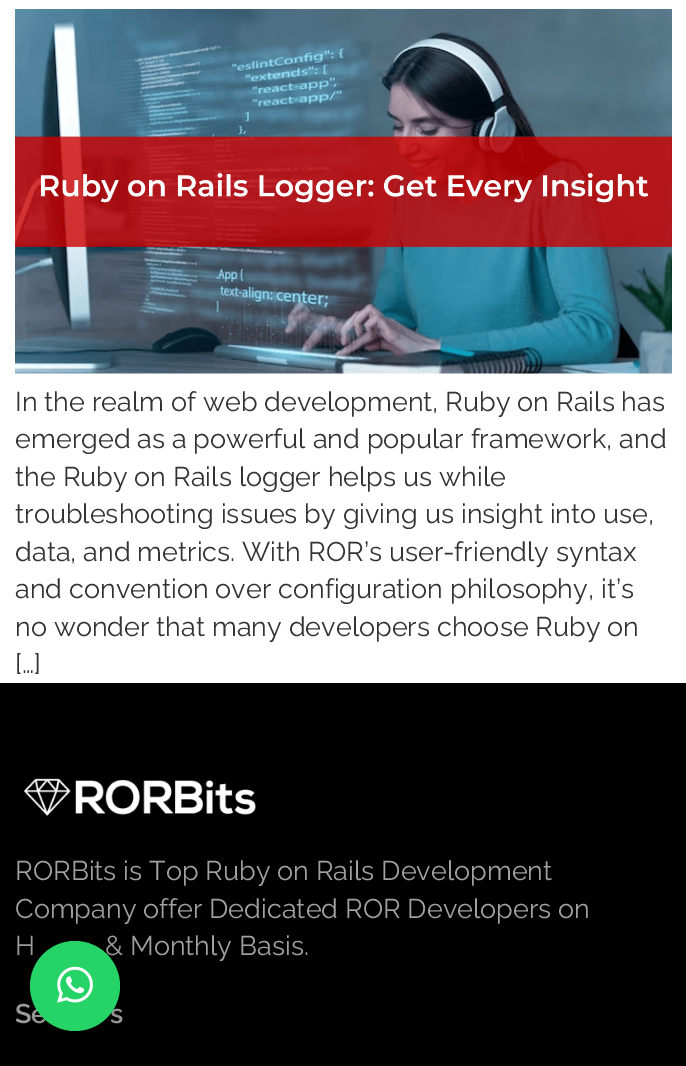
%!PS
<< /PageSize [686 1066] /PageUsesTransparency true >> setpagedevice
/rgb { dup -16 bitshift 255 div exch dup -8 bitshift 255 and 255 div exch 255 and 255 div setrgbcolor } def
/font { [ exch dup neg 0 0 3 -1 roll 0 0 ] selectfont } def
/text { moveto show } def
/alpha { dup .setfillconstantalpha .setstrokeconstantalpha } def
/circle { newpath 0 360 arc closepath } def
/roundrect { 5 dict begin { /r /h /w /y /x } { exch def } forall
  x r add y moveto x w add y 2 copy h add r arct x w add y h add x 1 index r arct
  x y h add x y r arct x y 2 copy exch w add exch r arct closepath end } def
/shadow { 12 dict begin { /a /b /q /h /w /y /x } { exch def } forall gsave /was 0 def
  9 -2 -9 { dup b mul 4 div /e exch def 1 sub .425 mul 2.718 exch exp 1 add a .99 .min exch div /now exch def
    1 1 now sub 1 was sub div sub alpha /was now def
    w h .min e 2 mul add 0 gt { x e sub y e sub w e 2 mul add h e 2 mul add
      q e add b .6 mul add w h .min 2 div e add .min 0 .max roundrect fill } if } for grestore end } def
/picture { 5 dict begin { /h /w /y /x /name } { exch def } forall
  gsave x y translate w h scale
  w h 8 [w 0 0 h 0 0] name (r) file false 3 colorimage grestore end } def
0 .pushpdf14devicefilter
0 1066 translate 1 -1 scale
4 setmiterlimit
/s1 { /Raleway-Regular 27 font 16#333333 rgb } def
/s2 { /Raleway-Regular 27 font 16#A1A1A1 rgb } def
/s3 { /Raleway-SemiBold 27 font 16#A1A1A1 rgb } def
16#FFFFFF rgb
0 0 686 1066 rectfill
(pic1.raw) 15 9 657 365 picture
s1
(In the realm of web development, Ruby on Rails has) 15 411 text
(emerged as a powerful and popular framework, and) 15 448 text
(the Ruby on Rails logger helps us while) 15 486 text
(troubleshooting issues by giving us insight into use,) 15 523 text
(data, and metrics. With ROR’s user-friendly syntax) 15 561 text
(and convention over configuration philosophy, it’s) 15 598 text
(no wonder that many developers choose Ruby on) 15 636 text
([…]) 15 673 text
16#000000 rgb
0 683 686 383 rectfill
(pic2.raw) 24 778 232 38 picture
s2
(RORBits is Top Ruby on Rails Development) 15 880 text
(Company offer Dedicated ROR Developers on) 15 918 text
(H) 15 955 text
(& Monthly Basis.) 105 955 text
s3
(Se) 15 1023 text
(s) 110 1023 text
16#000000 rgb
30 944 90 90 45 24 0.16 shadow
16#25D366 rgb
75 986 45 circle fill
(pic3.raw) 57 966 36 37 picture
.poppdf14devicefilter showpage
